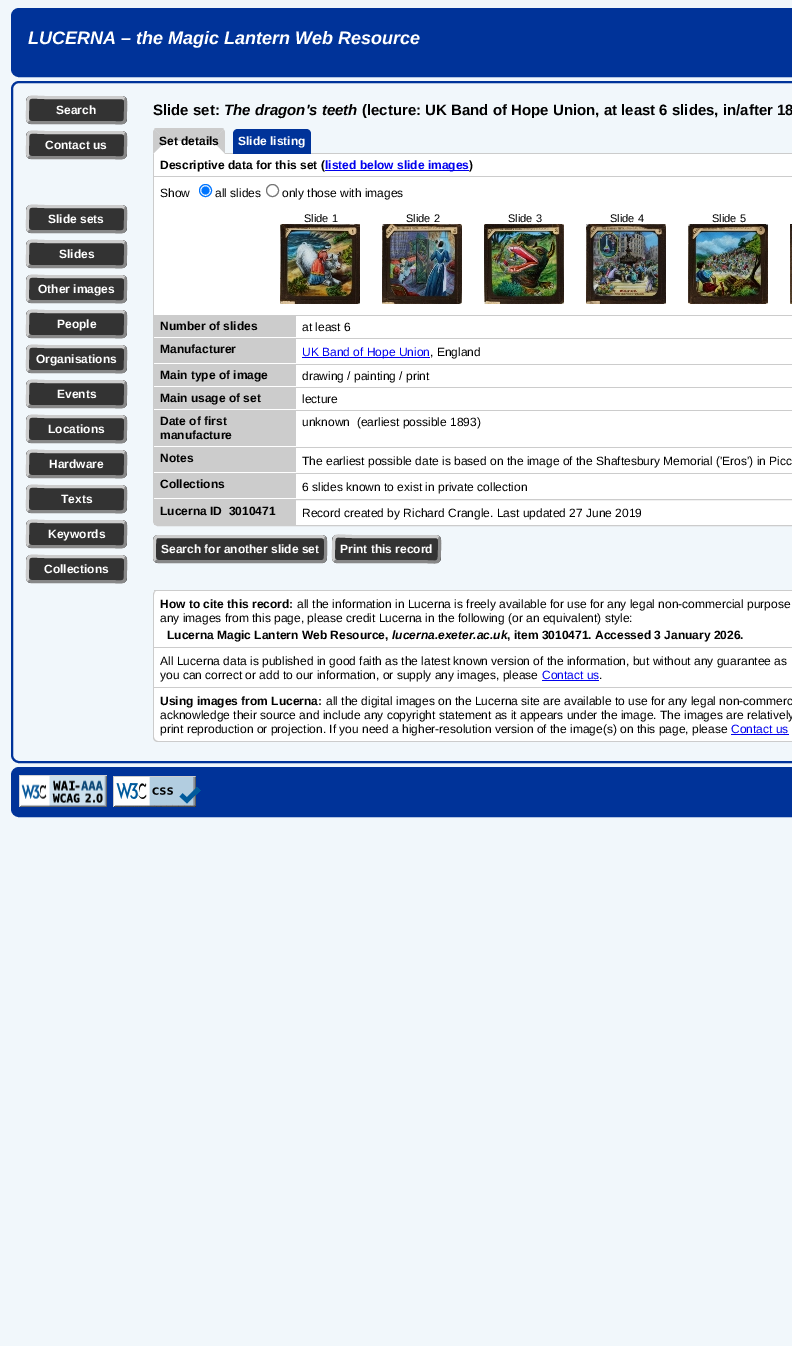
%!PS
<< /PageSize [792 1346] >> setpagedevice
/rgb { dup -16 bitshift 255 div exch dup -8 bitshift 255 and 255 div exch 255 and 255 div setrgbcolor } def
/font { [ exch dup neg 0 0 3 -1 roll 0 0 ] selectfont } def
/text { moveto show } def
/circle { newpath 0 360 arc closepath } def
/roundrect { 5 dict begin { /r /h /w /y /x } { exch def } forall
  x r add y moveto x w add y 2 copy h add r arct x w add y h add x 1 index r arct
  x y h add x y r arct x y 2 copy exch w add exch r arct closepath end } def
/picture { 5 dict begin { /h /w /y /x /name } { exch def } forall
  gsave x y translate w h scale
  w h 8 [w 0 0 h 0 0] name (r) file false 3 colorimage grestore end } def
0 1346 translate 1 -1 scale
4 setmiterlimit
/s1 { /LiberationSans-BoldItalic 18 font 16#FFFFFF rgb } def
/s2 { /LiberationSans-Bold 12 font 16#FFFFFF rgb } def
/s3 { /LiberationSans-Bold 15 font 16#000000 rgb } def
/s4 { /LiberationSans-BoldItalic 15 font 16#000000 rgb } def
/s5 { /LiberationSans-Bold 12 font 16#000000 rgb } def
/s6 { /LiberationSans-Bold 12 font 16#0000EE rgb } def
/s7 { /LiberationSans-Regular 12 font 16#000000 rgb } def
/s8 { /LiberationSans-Regular 11 font 16#000000 rgb } def
/s9 { /LiberationSans-Regular 12 font 16#0000EE rgb } def
/s10 { /LiberationSans-BoldItalic 12 font 16#000000 rgb } def
16#F1F7FB rgb
0 0 792 1346 rectfill
16#003399 rgb
12 9 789 67 7 roundrect gsave fill grestore
2 setlinewidth
stroke
s1
(LUCERNA – the Magic Lantern Web Resource) 28 44 text
16#003399 rgb
12 82 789 680 7 roundrect stroke
16#333333 rgb
26 96 101 28 5 roundrect fill
16#888888 rgb
3 setlinewidth
124.5 98.5 moveto 126.5 100.5 125.5 107.5 125.5 110 curveto 125.5 126.5 126 122.5 107 122.5 curveto 31 122.5 lineto 28.5 121.5 lineto stroke
16#CCCCCC rgb
28.5 121.5 moveto 26.5 119.5 27.5 112.5 27.5 110 curveto 27.5 93.5 27 97.5 46 97.5 curveto 122 97.5 lineto 124.5 98.5 lineto stroke
s2
(Search) 56 114 text
16#333333 rgb
26 131 101 28 5 roundrect fill
16#888888 rgb
124.5 133.5 moveto 126.5 135.5 125.5 142.5 125.5 145 curveto 125.5 161.5 126 157.5 107 157.5 curveto 31 157.5 lineto 28.5 156.5 lineto stroke
16#CCCCCC rgb
28.5 156.5 moveto 26.5 154.5 27.5 147.5 27.5 145 curveto 27.5 128.5 27 132.5 46 132.5 curveto 122 132.5 lineto 124.5 133.5 lineto stroke
s2
(Contact us) 45 149 text
16#333333 rgb
26 205 101 28 5 roundrect fill
16#888888 rgb
124.5 207.5 moveto 126.5 209.5 125.5 216.5 125.5 219 curveto 125.5 235.5 126 231.5 107 231.5 curveto 31 231.5 lineto 28.5 230.5 lineto stroke
16#CCCCCC rgb
28.5 230.5 moveto 26.5 228.5 27.5 221.5 27.5 219 curveto 27.5 202.5 27 206.5 46 206.5 curveto 122 206.5 lineto 124.5 207.5 lineto stroke
s2
(Slide sets) 48 223 text
16#333333 rgb
26 240 101 28 5 roundrect fill
16#888888 rgb
124.5 242.5 moveto 126.5 244.5 125.5 251.5 125.5 254 curveto 125.5 270.5 126 266.5 107 266.5 curveto 31 266.5 lineto 28.5 265.5 lineto stroke
16#CCCCCC rgb
28.5 265.5 moveto 26.5 263.5 27.5 256.5 27.5 254 curveto 27.5 237.5 27 241.5 46 241.5 curveto 122 241.5 lineto 124.5 242.5 lineto stroke
s2
(Slides) 59 258 text
16#333333 rgb
26 275 101 28 5 roundrect fill
16#888888 rgb
124.5 277.5 moveto 126.5 279.5 125.5 286.5 125.5 289 curveto 125.5 305.5 126 301.5 107 301.5 curveto 31 301.5 lineto 28.5 300.5 lineto stroke
16#CCCCCC rgb
28.5 300.5 moveto 26.5 298.5 27.5 291.5 27.5 289 curveto 27.5 272.5 27 276.5 46 276.5 curveto 122 276.5 lineto 124.5 277.5 lineto stroke
s2
(Other images) 38 293 text
16#333333 rgb
26 310 101 28 5 roundrect fill
16#888888 rgb
124.5 312.5 moveto 126.5 314.5 125.5 321.5 125.5 324 curveto 125.5 340.5 126 336.5 107 336.5 curveto 31 336.5 lineto 28.5 335.5 lineto stroke
16#CCCCCC rgb
28.5 335.5 moveto 26.5 333.5 27.5 326.5 27.5 324 curveto 27.5 307.5 27 311.5 46 311.5 curveto 122 311.5 lineto 124.5 312.5 lineto stroke
s2
(People) 57 328 text
16#333333 rgb
26 345 101 28 5 roundrect fill
16#888888 rgb
124.5 347.5 moveto 126.5 349.5 125.5 356.5 125.5 359 curveto 125.5 375.5 126 371.5 107 371.5 curveto 31 371.5 lineto 28.5 370.5 lineto stroke
16#CCCCCC rgb
28.5 370.5 moveto 26.5 368.5 27.5 361.5 27.5 359 curveto 27.5 342.5 27 346.5 46 346.5 curveto 122 346.5 lineto 124.5 347.5 lineto stroke
s2
(Organisations) 36 363 text
16#333333 rgb
26 380 101 28 5 roundrect fill
16#888888 rgb
124.5 382.5 moveto 126.5 384.5 125.5 391.5 125.5 394 curveto 125.5 410.5 126 406.5 107 406.5 curveto 31 406.5 lineto 28.5 405.5 lineto stroke
16#CCCCCC rgb
28.5 405.5 moveto 26.5 403.5 27.5 396.5 27.5 394 curveto 27.5 377.5 27 381.5 46 381.5 curveto 122 381.5 lineto 124.5 382.5 lineto stroke
s2
(Events) 57 398 text
16#333333 rgb
26 415 101 28 5 roundrect fill
16#888888 rgb
124.5 417.5 moveto 126.5 419.5 125.5 426.5 125.5 429 curveto 125.5 445.5 126 441.5 107 441.5 curveto 31 441.5 lineto 28.5 440.5 lineto stroke
16#CCCCCC rgb
28.5 440.5 moveto 26.5 438.5 27.5 431.5 27.5 429 curveto 27.5 412.5 27 416.5 46 416.5 curveto 122 416.5 lineto 124.5 417.5 lineto stroke
s2
(Locations) 48 433 text
16#333333 rgb
26 450 101 28 5 roundrect fill
16#888888 rgb
124.5 452.5 moveto 126.5 454.5 125.5 461.5 125.5 464 curveto 125.5 480.5 126 476.5 107 476.5 curveto 31 476.5 lineto 28.5 475.5 lineto stroke
16#CCCCCC rgb
28.5 475.5 moveto 26.5 473.5 27.5 466.5 27.5 464 curveto 27.5 447.5 27 451.5 46 451.5 curveto 122 451.5 lineto 124.5 452.5 lineto stroke
s2
(Hardware) 49 468 text
16#333333 rgb
26 485 101 28 5 roundrect fill
16#888888 rgb
124.5 487.5 moveto 126.5 489.5 125.5 496.5 125.5 499 curveto 125.5 515.5 126 511.5 107 511.5 curveto 31 511.5 lineto 28.5 510.5 lineto stroke
16#CCCCCC rgb
28.5 510.5 moveto 26.5 508.5 27.5 501.5 27.5 499 curveto 27.5 482.5 27 486.5 46 486.5 curveto 122 486.5 lineto 124.5 487.5 lineto stroke
s2
(Texts) 61 503 text
16#333333 rgb
26 520 101 28 5 roundrect fill
16#888888 rgb
124.5 522.5 moveto 126.5 524.5 125.5 531.5 125.5 534 curveto 125.5 550.5 126 546.5 107 546.5 curveto 31 546.5 lineto 28.5 545.5 lineto stroke
16#CCCCCC rgb
28.5 545.5 moveto 26.5 543.5 27.5 536.5 27.5 534 curveto 27.5 517.5 27 521.5 46 521.5 curveto 122 521.5 lineto 124.5 522.5 lineto stroke
s2
(Keywords) 48 538 text
16#333333 rgb
26 555 101 28 5 roundrect fill
16#888888 rgb
124.5 557.5 moveto 126.5 559.5 125.5 566.5 125.5 569 curveto 125.5 585.5 126 581.5 107 581.5 curveto 31 581.5 lineto 28.5 580.5 lineto stroke
16#CCCCCC rgb
28.5 580.5 moveto 26.5 578.5 27.5 571.5 27.5 569 curveto 27.5 552.5 27 556.5 46 556.5 curveto 122 556.5 lineto 124.5 557.5 lineto stroke
s2
(Collections) 44 573 text
s3
(Slide set:) 153 115 text
s4
(The dragon's teeth) 224 115 text
s3
(\(lecture: UK Band of Hope Union, at least 6 slides, in/after 18) 362 115 text
16#CCCCCC rgb
158 128 moveto 220 128 lineto 222 128 223 128 224 129 curveto 212 141 lineto 166 141 lineto 154 129 lineto 155 128 156 128 158 128 curveto closepath fill
16#FFFFFF rgb
154 154 638 22 rectfill
16#CCCCCC rgb
153 153 moveto 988 153 lineto 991 153 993 155 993 158 curveto 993 176 lineto 153 176 lineto closepath 154 154 moveto 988 154 lineto 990 154 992 156 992 158 curveto 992 176 lineto 154 176 lineto closepath eofill
223.5 129.5 moveto 212 141 lineto 225 154 lineto 225 133 lineto 225 131.5 224.5 130 223.5 129.5 curveto closepath fill
16#FFFFFF rgb
225 154 moveto 212 141 lineto 166 141 lineto 153 154 lineto closepath fill
16#CCCCCC rgb
153 154 moveto 153 133 lineto 153 131.5 153.5 130 154.5 129.5 curveto 166 141 lineto closepath fill
s5
(Set details) 159 145 text
16#003399 rgb
238 129 moveto 306 129 lineto 309 129 311 131 311 134 curveto 311 154 lineto 233 154 lineto 233 134 lineto 233 131 235 129 238 129 curveto closepath fill
s2
(Slide listing) 238 145 text
s5
(Descriptive data for this set \() 160 169 text
16#0000EE rgb
325 170 144 1 rectfill
(listed below slide images) 325 169 text
s5
(\)) 469 169 text
16#FFFFFF rgb
154 177 638 138 rectfill
16#CCCCCC rgb
153 176 639 1 rectfill
153 176 1 323 rectfill
s7
(Show) 160 197 text
16#0075FF rgb
1 setlinewidth
205.5 190.5 6 circle stroke
205.5 190.5 4 circle fill
s7
(all slides) 215 197 text
16#767676 rgb
272.5 190.5 6 circle stroke
s7
(only those with images) 282 197 text
s8
(Slide 1) 304 222 text
(pic1.raw) 280 224 80 80 picture
(Slide 2) 406 222 text
(pic2.raw) 382 224 80 80 picture
(Slide 3) 508 222 text
(pic3.raw) 484 224 80 80 picture
(Slide 4) 610 222 text
(pic4.raw) 586 224 80 80 picture
(Slide 5) 712 222 text
(pic5.raw) 688 224 80 80 picture
(pic6.raw) 790 224 2 80 picture
16#FFFFFF rgb
296 316 496 183 rectfill
16#CCCCCC rgb
154 315 142 22 rectfill
16#FFFFFF rgb
154 337 142 1 rectfill
s5
(Number of slides) 160 330 text
16#CCCCCC rgb
296 315 496 1 rectfill
s7
(at least 6) 302 331 text
16#CCCCCC rgb
154 338 142 25 rectfill
16#FFFFFF rgb
154 363 142 1 rectfill
s5
(Manufacturer) 160 353 text
16#CCCCCC rgb
296 338 496 1 rectfill
16#0000EE rgb
302 357 128 1 rectfill
s9
(UK Band of Hope Union) 302 356 text
s7
(, England) 430 356 text
16#CCCCCC rgb
154 364 142 22 rectfill
16#FFFFFF rgb
154 386 142 1 rectfill
s5
(Main type of image) 160 379 text
16#CCCCCC rgb
296 364 496 1 rectfill
s7
(drawing / painting / print) 302 380 text
16#CCCCCC rgb
154 387 142 22 rectfill
16#FFFFFF rgb
154 409 142 1 rectfill
s5
(Main usage of set) 160 402 text
16#CCCCCC rgb
296 387 496 1 rectfill
s7
(lecture) 302 403 text
16#CCCCCC rgb
154 410 142 36 rectfill
16#FFFFFF rgb
154 446 142 1 rectfill
s5
(Date of first) 160 425 text
(manufacture) 160 439 text
16#CCCCCC rgb
296 410 496 1 rectfill
s7
(unknown  \(earliest possible 1893\)) 302 426 text
16#CCCCCC rgb
154 447 142 25 rectfill
16#FFFFFF rgb
154 472 142 1 rectfill
s5
(Notes) 160 462 text
16#CCCCCC rgb
296 447 496 1 rectfill
s7
(The earliest possible date is based on the image of the Shaftesbury Memorial \('Eros'\) in Picc) 302 465 text
16#CCCCCC rgb
154 473 142 25 rectfill
16#FFFFFF rgb
154 498 142 1 rectfill
s5
(Collections) 160 488 text
16#CCCCCC rgb
296 473 496 1 rectfill
s7
(6 slides known to exist in private collection) 302 491 text
16#FFFFFF rgb
153.5 499.5 moveto 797.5 499.5 lineto 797.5 521 lineto 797.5 523.5 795.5 525.5 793 525.5 curveto 158 525.5 lineto 155.5 525.5 153.5 523.5 153.5 521 curveto closepath gsave fill grestore
16#CCCCCC rgb
stroke
154 500 142 25 rectfill
s5
(Lucerna ID  3010471) 160 515 text
s7
(Record created by Richard Crangle. Last updated 27 June 2019) 302 517 text
16#333333 rgb
153 535 174 28 5 roundrect fill
16#888888 rgb
3 setlinewidth
324.5 537.5 moveto 326.5 539.5 325.5 551.5 325.5 555 curveto 325.5 557.5 325.5 561.5 322 561.5 curveto 158 561.5 lineto 155.5 560.5 lineto stroke
gsave
153 526 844 50 rectclip
16#CCCCCC rgb
155.5 560.5 moveto 153.5 558.5 154.5 546.5 154.5 543 curveto 154.5 540.5 154.5 536.5 158 536.5 curveto 322 536.5 lineto 324.5 537.5 lineto stroke
grestore
s2
(Search for another slide set) 161 553 text
16#333333 rgb
332 535 109 28 5 roundrect fill
16#888888 rgb
438.5 537.5 moveto 440.5 539.5 439.5 546.5 439.5 549 curveto 439.5 566 439.5 561.5 419.5 561.5 curveto 336.5 561.5 lineto 334.5 560.5 lineto stroke
16#CCCCCC rgb
334.5 560.5 moveto 332.5 558.5 333.5 551.5 333.5 549 curveto 333.5 532 333.5 536.5 353.5 536.5 curveto 436.5 536.5 lineto 438.5 537.5 lineto stroke
s2
(Print this record) 340 553 text
153 590 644 152 5 roundrect fill
16#CCCCCC rgb
158 590 moveto 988 590 lineto 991 590 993 592 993 595 curveto 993 737 lineto 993 740 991 742 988 742 curveto 158 742 lineto 155 742 153 740 153 737 curveto 153 595 lineto 153 592 155 590 158 590 curveto closepath 158 590 moveto 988 590 lineto 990 590 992 592 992 595 curveto 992 737 lineto 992 739 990 741 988 741 curveto 158 741 lineto 156 741 154 739 154 737 curveto 154 595 lineto 154 592 156 590 158 590 curveto closepath eofill
154 590 638 1 rectfill
s5
(How to cite this record:) 160 608 text
s7
(all the information in Lucerna is freely available for use for any legal non-commercial purpose) 297 608 text
(any images from this page, please credit Lucerna in the following \(or an equivalent\) style:) 160 622 text
s5
(Lucerna Magic Lantern Web Resource,) 167 639 text
s10
(lucerna.exeter.ac.uk) 392 639 text
s5
(, item 3010471. Accessed 3 January 2026.) 507 639 text
16#CCCCCC rgb
154 647 638 1 rectfill
s7
(All Lucerna data is published in good faith as the latest known version of the information, but without any guarantee as) 160 665 text
(you can correct or add to our information, or supply any images, please) 160 679 text
s9
(Contact us) 542 679 text
542 680 57 1 rectfill
s7
(.) 599 679 text
16#CCCCCC rgb
154 687 638 1 rectfill
s5
(Using images from Lucerna:) 160 705 text
s7
(all the digital images on the Lucerna site are available to use for any legal non-commerc) 326 705 text
(acknowledge their source and include any copyright statement as it appears under the image. The images are relatively) 160 719 text
(print reproduction or projection. If you need a higher-resolution version of the image\(s\) on this page, please) 160 733 text
s9
(Contact us) 731 733 text
731 734 58 1 rectfill
16#003399 rgb
12 768 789 48 7 roundrect gsave fill grestore
2 setlinewidth
stroke
(pic7.raw) 19 775 88 32 picture
(pic8.raw) 113 776 88 31 picture
showpage
